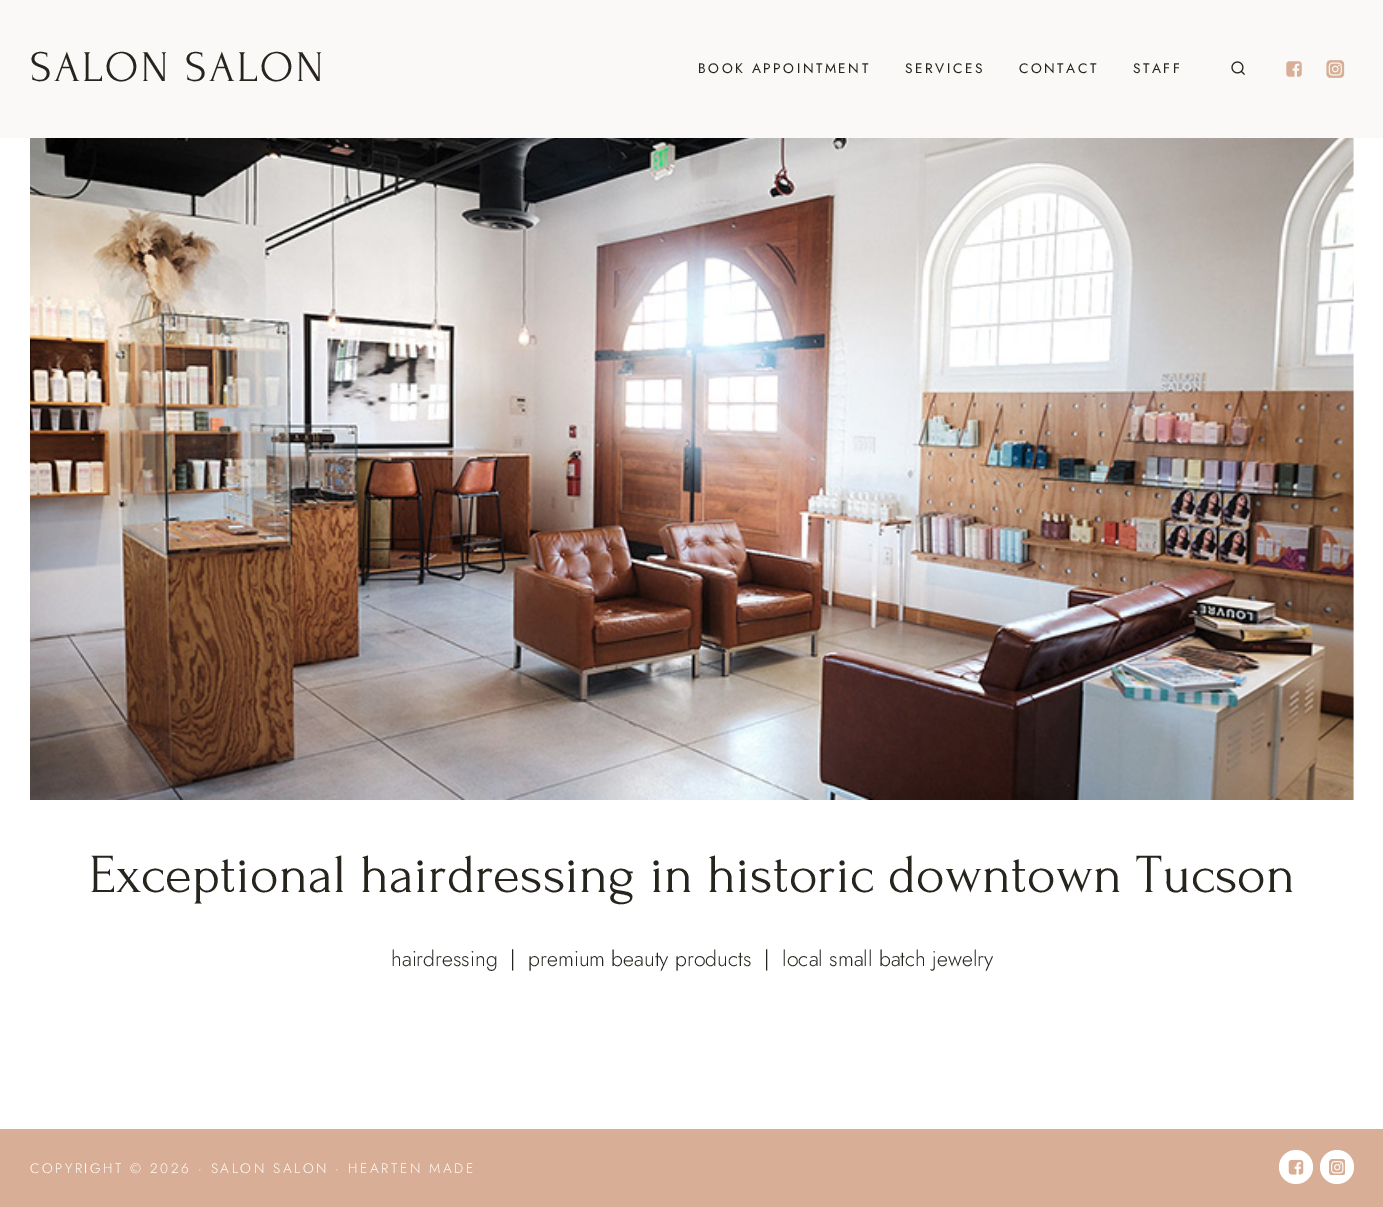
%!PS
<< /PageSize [1383 1207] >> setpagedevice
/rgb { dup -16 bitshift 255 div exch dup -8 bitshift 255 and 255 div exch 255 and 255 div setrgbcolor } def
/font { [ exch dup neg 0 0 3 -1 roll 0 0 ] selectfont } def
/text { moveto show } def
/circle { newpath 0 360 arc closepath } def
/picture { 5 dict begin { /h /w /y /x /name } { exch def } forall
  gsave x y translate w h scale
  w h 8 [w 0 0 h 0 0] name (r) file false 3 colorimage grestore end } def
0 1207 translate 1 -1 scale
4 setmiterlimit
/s1 { /Forum-Regular 55 font 16#27241D rgb } def
/s2 { /Jost-Light 21.25 font 16#27241D rgb } def
16#FFFFFF rgb
0 0 1383 1207 rectfill
16#FAF9F7 rgb
0 0 1383 138 rectfill
/Forum-Regular 43.75 font
16#27241D rgb
30 81 moveto 2.5 0 (SALON SALON) ashow
/Jost-Regular 13.75 font
698 73 moveto 2.5 0 (BOOK APPOINTMENT) ashow
905 73 moveto 2.5 0 (SERVICES) ashow
1019 73 moveto 2.5 0 (CONTACT) ashow
1133 73 moveto 2.5 0 (STAFF) ashow
(pic1.raw) 1231 61 14 14 picture
(pic2.raw) 1286 61 16 16 picture
(pic3.raw) 1326 60 19 18 picture
(pic4.raw) 30 138 1324 662 picture
s1
(Exceptional hairdressing in historic downtown Tucson) 89 892 text
s2
(hairdressing  |  premium beauty products  |  local small batch jewelry) 391 966 text
16#D8AF96 rgb
0 1129 1383 78 rectfill
/Jost-Light 13.75 font
16#FFFFFF rgb
30 1173 moveto 2.5 0 (COPYRIGHT © 2026 · SALON SALON · HEARTEN MADE) ashow
1296 1167 17 circle fill
(pic5.raw) 1288 1159 16 16 picture
1337 1167 17 circle fill
(pic6.raw) 1329 1159 16 16 picture
showpage
